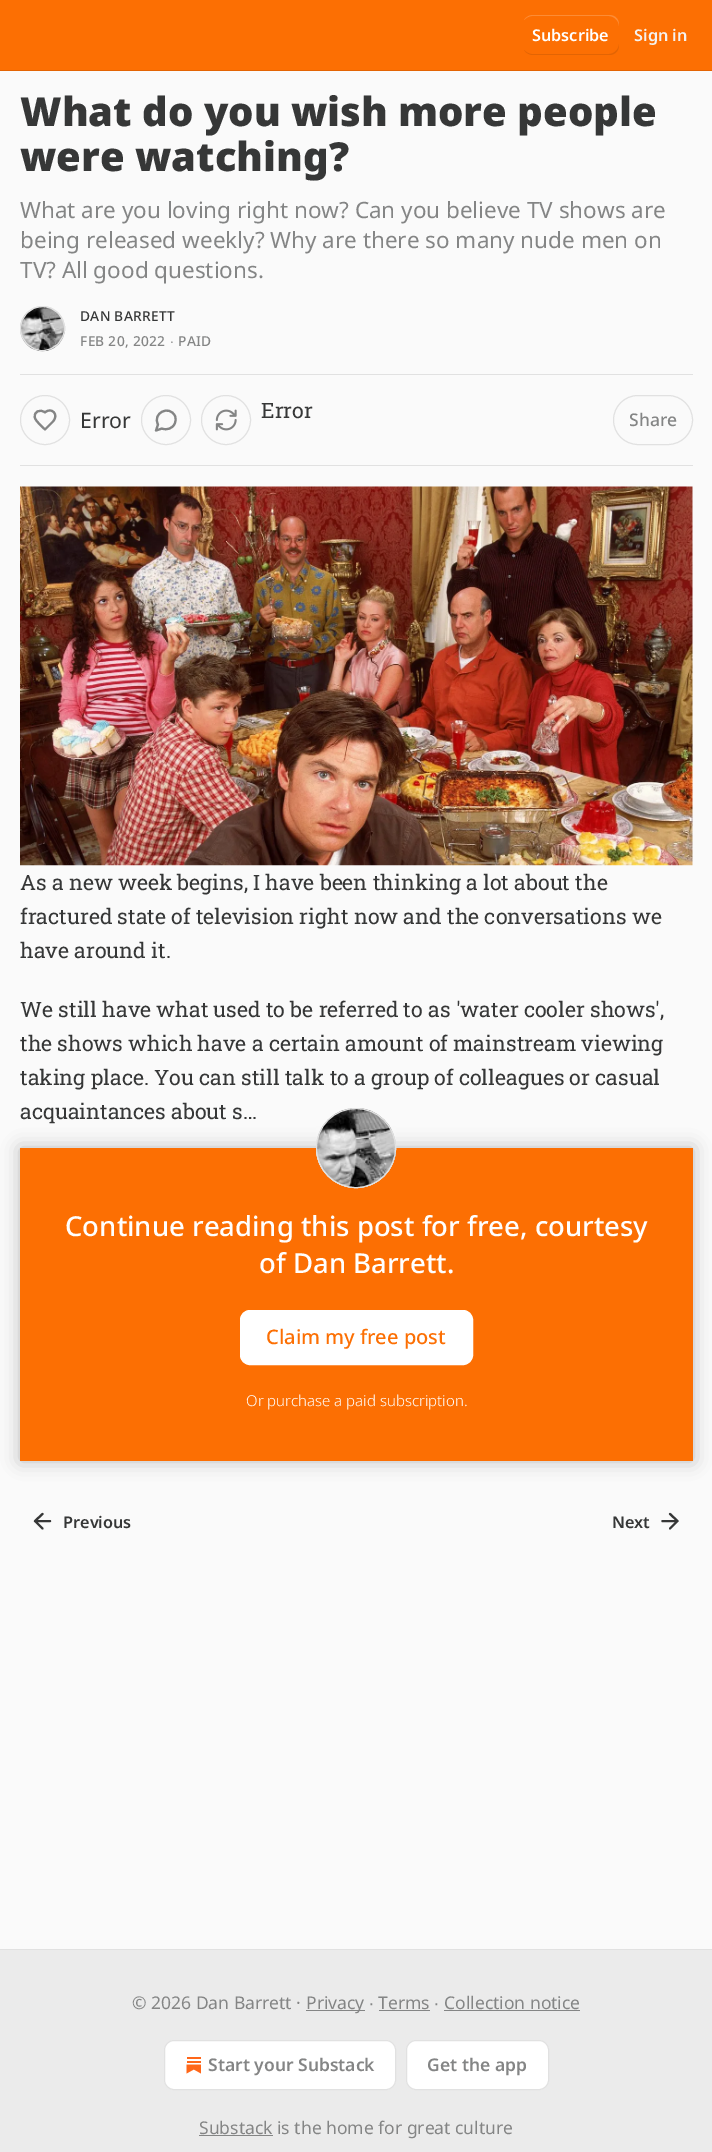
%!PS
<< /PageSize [712 2152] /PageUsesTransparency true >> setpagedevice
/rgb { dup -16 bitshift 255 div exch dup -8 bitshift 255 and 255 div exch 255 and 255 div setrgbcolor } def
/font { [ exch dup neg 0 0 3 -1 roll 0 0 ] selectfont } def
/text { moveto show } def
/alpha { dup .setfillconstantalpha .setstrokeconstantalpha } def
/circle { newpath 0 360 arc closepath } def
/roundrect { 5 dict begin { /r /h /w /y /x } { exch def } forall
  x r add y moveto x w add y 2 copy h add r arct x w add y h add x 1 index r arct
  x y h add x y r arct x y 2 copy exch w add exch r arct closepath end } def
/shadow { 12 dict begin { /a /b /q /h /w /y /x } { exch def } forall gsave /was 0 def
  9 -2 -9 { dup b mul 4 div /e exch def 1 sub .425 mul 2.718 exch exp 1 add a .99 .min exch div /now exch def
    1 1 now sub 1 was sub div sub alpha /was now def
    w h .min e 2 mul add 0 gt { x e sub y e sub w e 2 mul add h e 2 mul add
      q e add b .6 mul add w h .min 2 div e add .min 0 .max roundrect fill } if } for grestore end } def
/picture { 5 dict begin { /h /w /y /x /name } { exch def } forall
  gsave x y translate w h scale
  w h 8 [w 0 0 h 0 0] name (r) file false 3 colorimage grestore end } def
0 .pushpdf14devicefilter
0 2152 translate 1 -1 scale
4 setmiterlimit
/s1 { /NotoSans-SemiBold 16.25 font 16#FFFFFF rgb } def
/s2 { /NotoSans-SemiBold 16.25 font 16#F5F2EF rgb } def
/s3 { /NotoSans-Black 40 font 16#363737 rgb } def
/s4 { /NotoSans-Regular 22.5 font 16#848585 rgb } def
/s5 { /NotoSans-Regular 21.25 font 16#363737 rgb } def
/s6 { /RobotoSlab-Regular 21.25 font 16#363737 rgb } def
/s7 { /NotoSans-Medium 17.5 font 16#848585 rgb } def
/s8 { /NotoSans-Medium 27.5 font 16#FFFFFF rgb } def
/s9 { /NotoSans-Medium 20 font 16#FC6F03 rgb } def
/s10 { /NotoSans-Light 15 font 16#FFFFFF rgb } def
/s11 { /NotoSans-SemiBold 16.25 font 16#363737 rgb } def
/s12 { /NotoSans-Regular 17.5 font 16#848585 rgb } def
/s13 { /LiberationSans-Regular 17.5 font 16#848585 rgb } def
/s14 { /NotoSans-SemiBold 17.5 font 16#848585 rgb } def
16#FAFAFA rgb
0 0 712 2152 rectfill
16#FC6F03 rgb
0 0 712 70 rectfill
16#E36403 rgb
0 70 712 1 rectfill
524 50 moveto 526 53 529 55 533 55 curveto 609 55 lineto 615 55 619 51 619 45 curveto 619 44 lineto 619 49 614 54 609 54 curveto 532 54 lineto 529 54 526 52 524 50 curveto closepath fill
16#FD8C35 rgb
532 16 moveto 609 16 lineto 614 16 619 21 619 26 curveto 619 25 lineto 619 19 615 15 609 15 curveto 533 15 lineto 529 15 526 17 524 20 curveto 526 18 529 16 532 16 curveto closepath fill
s1
(Subscribe) 532 41 text
s2
(Sign in) 634 41 text
s3
(What do you wish more people) 20 126 text
(were watching?) 20 171 text
s4
(What are you loving right now? Can you believe TV shows are) 20 218 text
(being released weekly? Why are there so many nude men on) 20 248 text
(TV? All good questions.) 20 278 text
16#E1E1E1 rgb
42.5 328.5 22 circle stroke
(pic1.raw) 20 306 45 46 picture
42.5 328.5 22 circle stroke
/NotoSans-Medium 13.75 font
16#363737 rgb
80 321 moveto 0.25 0 (DAN BARRETT) ashow
16#848585 rgb
80 346 moveto 0.25 0 (FEB 20, 2022) ashow
/LiberationSans-Regular 13.75 font
170 346 moveto 0.25 0 (∙) ashow
/NotoSans-Medium 13.75 font
178 346 moveto 0.25 0 (PAID) ashow
16#E1E1E1 rgb
20 374 673 1 rectfill
20 465 673 1 rectfill
45 420 24.5 circle stroke
16#848585 rgb
2.1 setlinewidth
1 setlinecap
1 setlinejoin
52.5 422 moveto 60 414.5 51 406.5 45 412.5 curveto 40.5 408.5 33 411.5 35 418 curveto 36 421.5 42.5 427 45 429.5 curveto closepath stroke
s5
(Error) 80 428 text
16#E1E1E1 rgb
1 setlinewidth
0 setlinecap
0 setlinejoin
166 420 24.5 circle stroke
16#848585 rgb
2.1 setlinewidth
1 setlinecap
1 setlinejoin
162 428.5 moveto 166.5 430.5 172.5 428.5 174.5 424 curveto 176 421.5 176 418.5 175 416 curveto 169.5 404.5 152 413 158 424.5 curveto 156 430.5 lineto closepath stroke
16#E1E1E1 rgb
1 setlinewidth
0 setlinecap
0 setlinejoin
226 420 24.5 circle stroke
(pic2.raw) 215 409 22 22 picture
s6
(Error) 261 418 text
16#E1E1E1 rgb
613.5 395.5 79 49 24.5 roundrect stroke
s7
(Share) 629 426 text
(pic3.raw) 20 486 673 380 picture
s6
(As a new week begins, I have been thinking a lot about the) 20 890 text
(fractured state of television right now and the conversations we) 20 924 text
(have around it.) 20 958 text
(We still have what used to be referred to as 'water cooler shows',) 20 1017 text
(the shows which have a certain amount of mainstream viewing) 20 1051 text
(taking place. You can still talk to a group of colleagues or casual) 20 1085 text
(acquaintances about s…) 20 1119 text
16#FC6F03 rgb
20 1148 673 313 rectfill
16#FFFFFF rgb
240.5 1310.5 232 54 9.5 roundrect gsave fill grestore
stroke
gsave
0 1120 moveto 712 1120 lineto 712 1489 lineto 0 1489 lineto closepath 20 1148 moveto 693 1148 lineto 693 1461 lineto 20 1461 lineto closepath eoclip newpath
16#000000 rgb
20 1148 673 313 0 9 0.25 shadow
grestore
16#E1E1E1 rgb
356 1148 39.5 circle stroke
(pic4.raw) 316 1108 80 80 picture
356 1148 39.5 circle stroke
s8
(Continue reading this post for free, courtesy) 65 1236 text
(of Dan Barrett.) 259 1273 text
s9
(Claim my free post) 266 1344 text
s10
(Or purchase a paid subscription.) 246 1406 text
16#363737 rgb
2.1 setlinewidth
1 setlinecap
1 setlinejoin
42.5 1528.5 moveto 35 1521 lineto 42.5 1514 lineto 50 1521 moveto 35 1521 lineto stroke
s11
(Previous) 63 1528 text
(Next) 612 1528 text
662.5 1521 moveto 677.5 1521 lineto 670 1514 moveto 677.5 1521 lineto 670 1528.5 lineto stroke
16#EBEBEB rgb
0 1950 712 202 rectfill
16#E1E1E1 rgb
0 1949 712 1 rectfill
s12
(© 2026 Dan Barrett ·) 132 2009 text
306 2010 59 1 rectfill
(Privacy) 306 2009 text
s13
(∙) 369 2009 text
s12
(Terms) 378 2009 text
379 2010 51 1 rectfill
s13
(∙) 434 2009 text
s12
(Collection notice) 444 2009 text
444 2010 136 1 rectfill
16#FFFFFF rgb
164.5 2040.5 231 49 9.5 roundrect gsave fill grestore
16#E1E1E1 rgb
1 setlinewidth
0 setlinecap
0 setlinejoin
stroke
(pic5.raw) 186 2057 15 17 picture
s14
(Start your Substack) 208 2071 text
16#FFFFFF rgb
406.5 2040.5 142 49 9.5 roundrect gsave fill grestore
16#E1E1E1 rgb
stroke
s14
(Get the app) 427 2071 text
199 2135 74 1 rectfill
s12
(Substack is the home for great culture) 199 2134 text
.poppdf14devicefilter showpage
